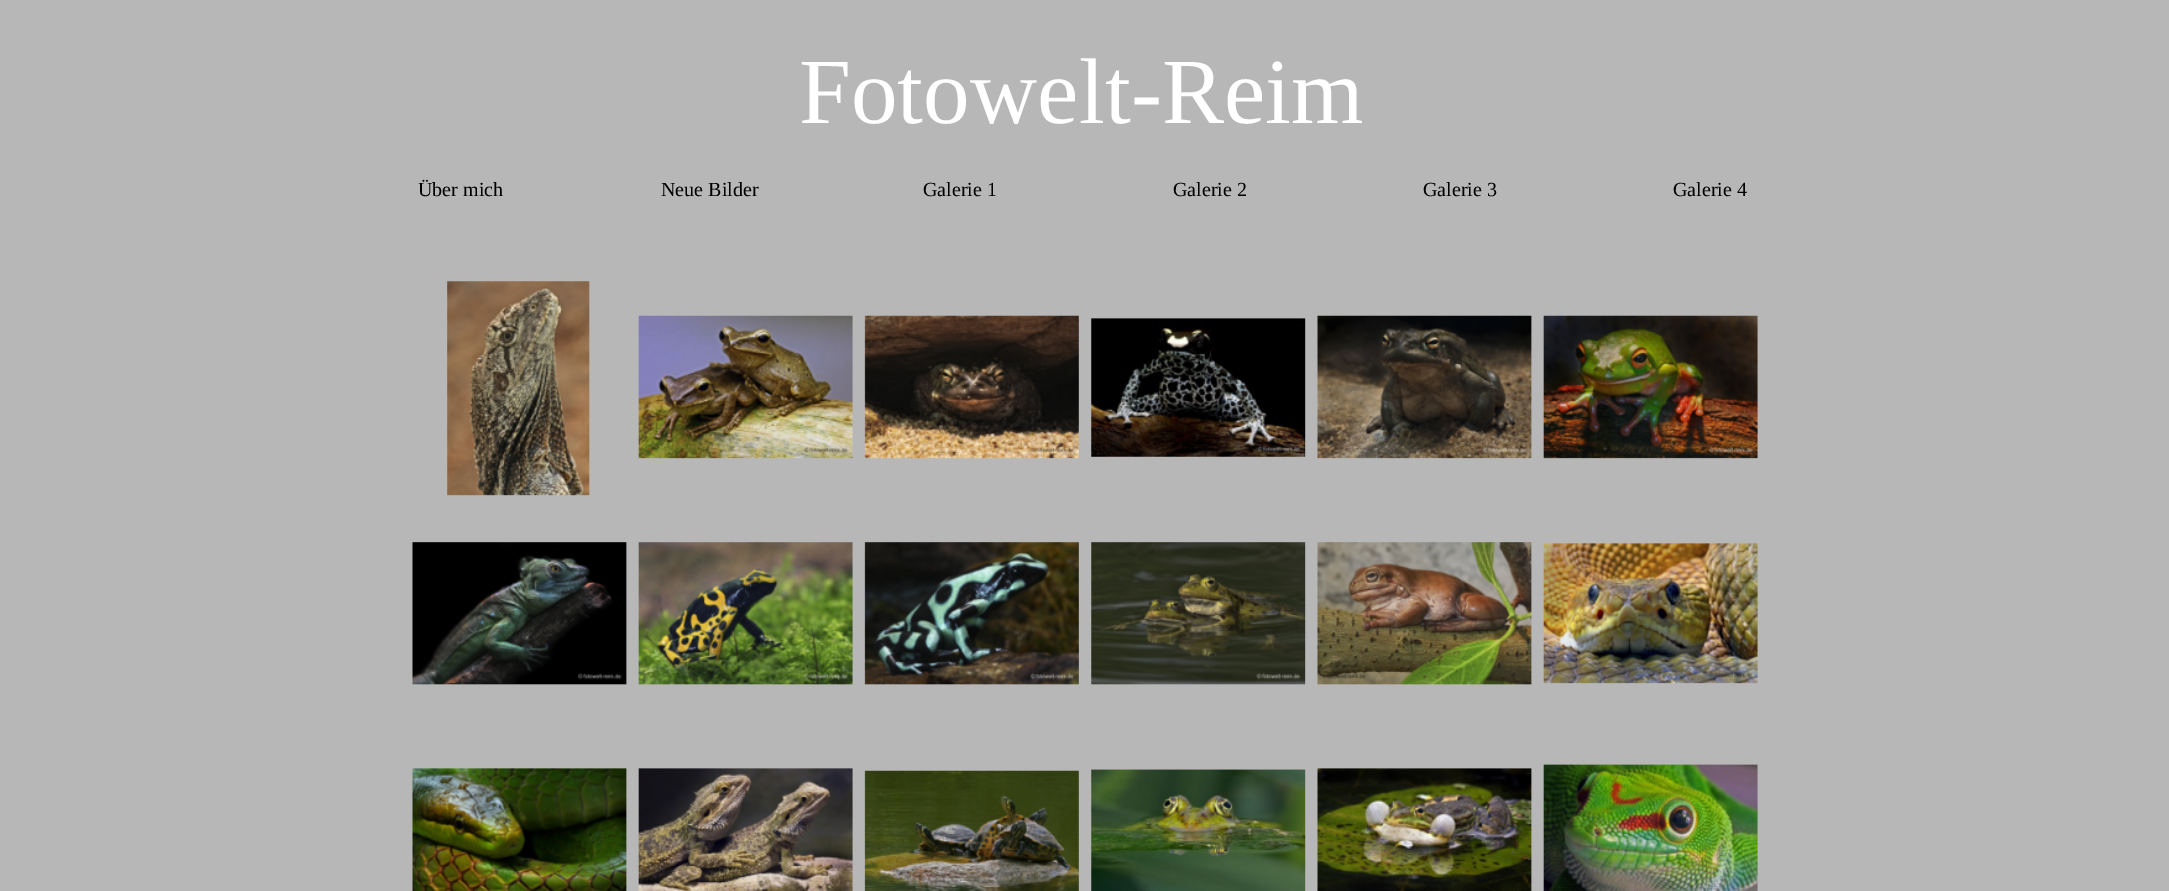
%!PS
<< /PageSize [2169 891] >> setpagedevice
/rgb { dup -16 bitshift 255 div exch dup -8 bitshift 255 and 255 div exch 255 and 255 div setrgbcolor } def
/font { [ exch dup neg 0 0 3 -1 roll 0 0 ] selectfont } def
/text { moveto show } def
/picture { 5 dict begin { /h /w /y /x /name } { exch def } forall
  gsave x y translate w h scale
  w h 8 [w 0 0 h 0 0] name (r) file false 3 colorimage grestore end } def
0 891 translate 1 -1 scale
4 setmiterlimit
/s1 { /LiberationSerif-Regular 93.25 font 16#FFFFFF rgb } def
/s2 { /LiberationSerif-Regular 20 font 16#000000 rgb } def
16#B7B7B7 rgb
0 0 2169 891 rectfill
s1
(Fotowelt-Reim) 799 123 text
s2
(Über mich) 418 196 text
(Neue Bilder) 661 196 text
(Galerie 1) 923 196 text
(Galerie 2) 1173 196 text
(Galerie 3) 1423 196 text
(Galerie 4) 1673 196 text
(pic1.raw) 447 281 143 215 picture
(pic2.raw) 638 315 215 144 picture
(pic3.raw) 864 315 215 144 picture
(pic4.raw) 1091 318 215 139 picture
(pic5.raw) 1317 315 215 144 picture
(pic6.raw) 1543 315 215 144 picture
(pic7.raw) 412 542 215 143 picture
(pic8.raw) 638 542 215 143 picture
(pic9.raw) 864 542 215 143 picture
(pic10.raw) 1091 542 215 143 picture
(pic11.raw) 1317 542 215 143 picture
(pic12.raw) 1543 543 215 141 picture
(pic13.raw) 412 768 215 123 picture
(pic14.raw) 638 768 215 123 picture
(pic15.raw) 864 770 215 121 picture
(pic16.raw) 1091 769 215 122 picture
(pic17.raw) 1317 768 215 123 picture
(pic18.raw) 1543 764 215 127 picture
showpage
